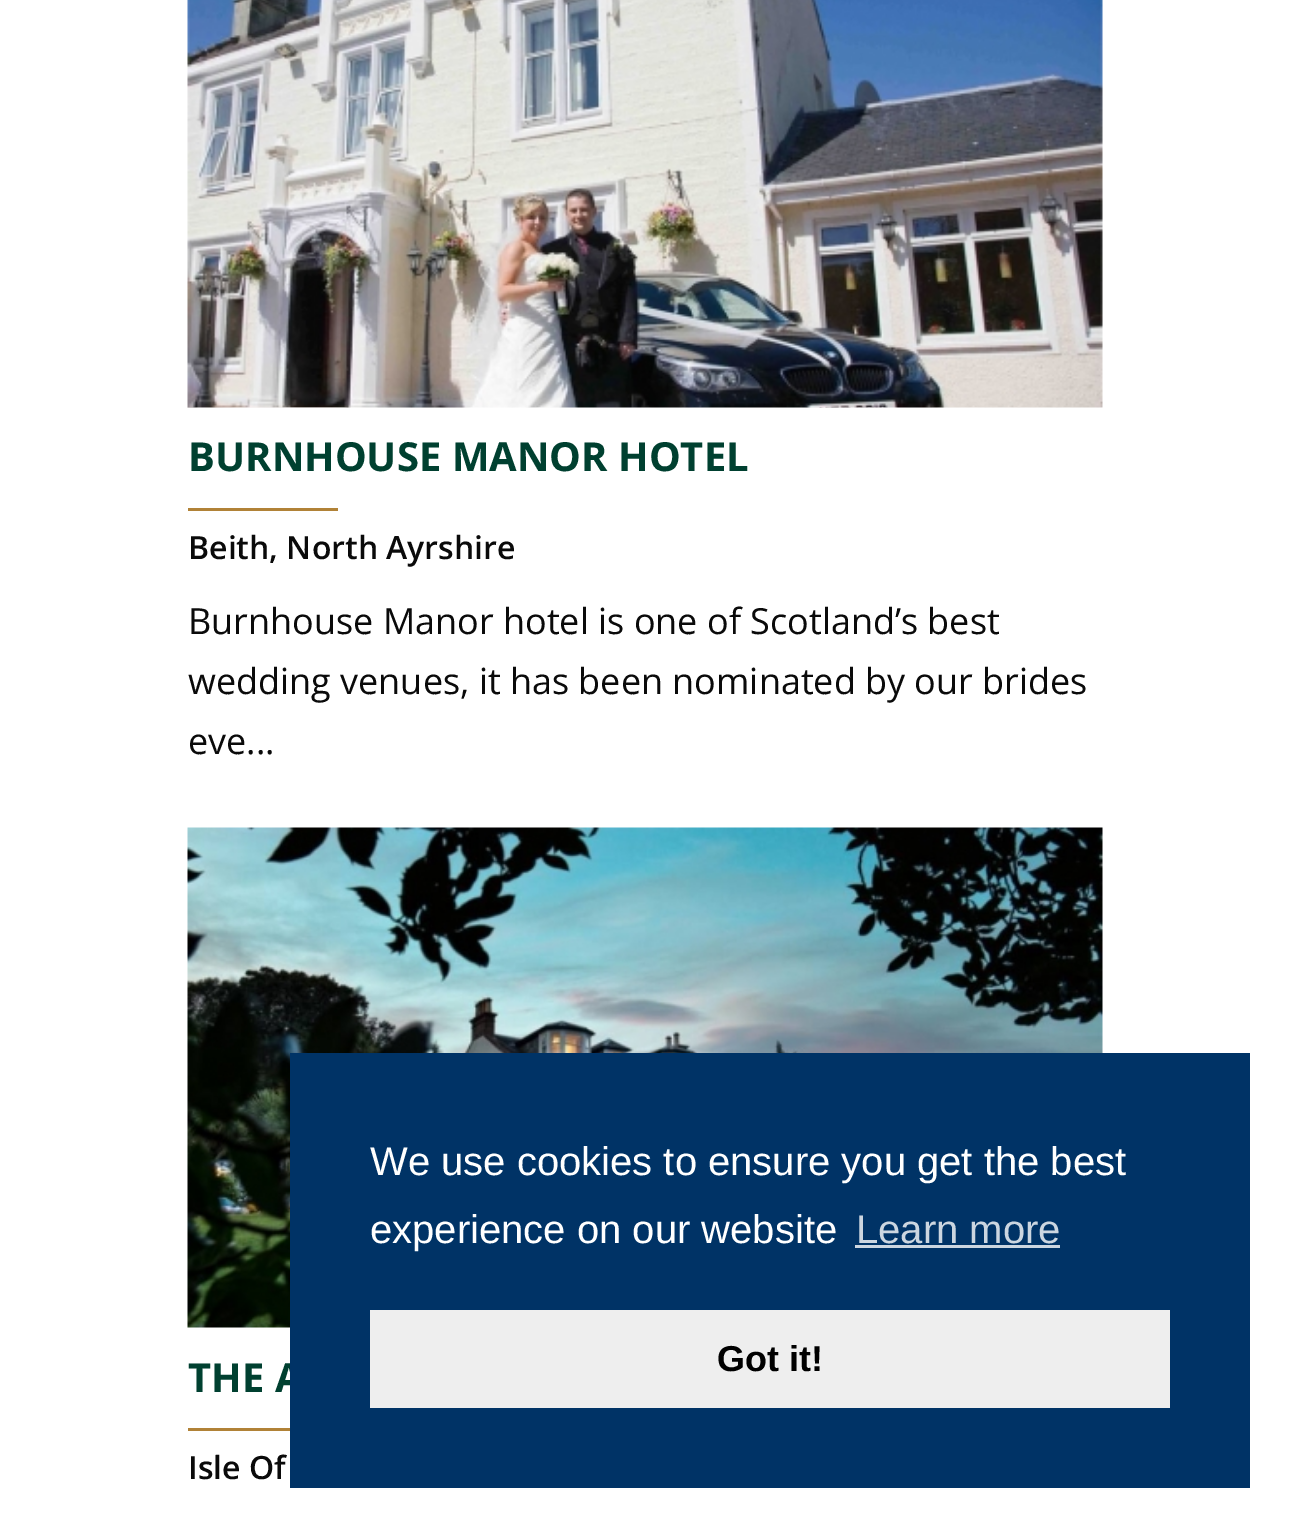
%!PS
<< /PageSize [1289 1526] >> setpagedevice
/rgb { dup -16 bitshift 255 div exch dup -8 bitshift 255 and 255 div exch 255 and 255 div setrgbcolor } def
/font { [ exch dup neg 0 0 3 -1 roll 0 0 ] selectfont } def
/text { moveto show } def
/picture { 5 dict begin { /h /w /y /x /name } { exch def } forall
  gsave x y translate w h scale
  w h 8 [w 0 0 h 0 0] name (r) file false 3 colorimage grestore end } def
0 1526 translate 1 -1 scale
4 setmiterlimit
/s1 { /OpenSans-Bold 40 font 16#004030 rgb } def
/s2 { /OpenSans-SemiBold 32 font 16#0A0A0A rgb } def
/s3 { /OpenSans-Regular 36 font 16#0A0A0A rgb } def
/s4 { /LiberationSans-Regular 40 font 16#FFFFFF rgb } def
/s5 { /LiberationSans-Regular 40 font 16#CCD6E0 rgb } def
/s6 { /LiberationSans-Bold 36 font 16#000000 rgb } def
16#FFFFFF rgb
0 0 1289 1526 rectfill
(pic1.raw) 187 0 916 408 picture
s1
(BURNHOUSE MANOR HOTEL) 188 471 text
16#B18237 rgb
188 508 150 3 rectfill
s2
(Beith, North Ayrshire) 188 559 text
s3
(Burnhouse Manor hotel is one of Scotland’s best) 188 634 text
(wedding venues, it has been nominated by our brides) 188 694 text
(eve...) 188 754 text
(pic2.raw) 187 827 916 501 picture
s1
(THE A) 188 1392 text
16#B18237 rgb
188 1428 102 3 rectfill
s2
(Isle Of) 188 1479 text
16#003366 rgb
290 1053 960 435 rectfill
s4
(We use cookies to ensure you get the best) 370 1175 text
(experience on our website) 370 1243 text
s5
(Learn more) 856 1243 text
855 1245 205 3 rectfill
16#EEEEEE rgb
370 1310 800 98 rectfill
s6
(Got it!) 717 1371 text
showpage
